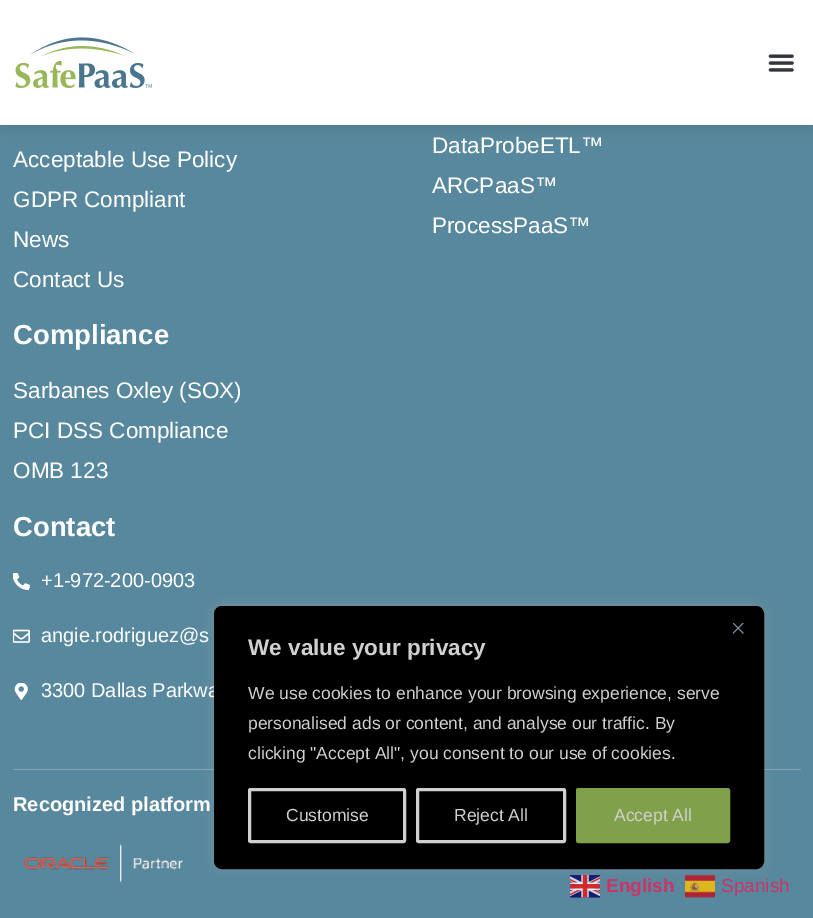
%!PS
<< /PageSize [813 918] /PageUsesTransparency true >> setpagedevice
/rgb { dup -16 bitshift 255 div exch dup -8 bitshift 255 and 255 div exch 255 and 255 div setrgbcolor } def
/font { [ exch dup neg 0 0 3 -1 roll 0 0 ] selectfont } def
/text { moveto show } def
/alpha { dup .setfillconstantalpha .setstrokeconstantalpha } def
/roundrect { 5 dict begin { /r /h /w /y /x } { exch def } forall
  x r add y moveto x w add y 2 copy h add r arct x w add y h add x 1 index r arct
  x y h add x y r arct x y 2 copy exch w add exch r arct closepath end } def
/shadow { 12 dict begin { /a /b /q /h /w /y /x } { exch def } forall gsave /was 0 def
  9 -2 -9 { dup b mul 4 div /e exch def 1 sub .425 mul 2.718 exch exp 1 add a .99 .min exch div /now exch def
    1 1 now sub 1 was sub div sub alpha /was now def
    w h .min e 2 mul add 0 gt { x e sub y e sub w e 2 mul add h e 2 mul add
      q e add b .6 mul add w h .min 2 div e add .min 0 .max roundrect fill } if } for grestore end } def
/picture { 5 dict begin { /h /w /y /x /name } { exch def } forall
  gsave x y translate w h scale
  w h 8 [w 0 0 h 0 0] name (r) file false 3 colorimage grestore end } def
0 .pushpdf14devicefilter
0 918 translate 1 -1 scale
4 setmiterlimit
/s1 { /LiberationSans-Regular 22.5 font 16#FFFFFF rgb } def
/s2 { /LiberationSans-Bold 27.5 font 16#FFFFFF rgb } def
/s3 { /LiberationSans-Regular 20 font 16#FFFFFF rgb } def
/s4 { /LiberationSans-Bold 20 font 16#FFFFFF rgb } def
/s5 { /LiberationSans-Bold 22.5 font 16#D0D0D0 rgb } def
/s6 { /LiberationSans-Regular 17.5 font 16#D0D0D0 rgb } def
/s7 { /LiberationSans-Bold 19 font 16#CC3366 rgb } def
/s8 { /LiberationSans-Regular 19 font 16#CC3366 rgb } def
16#58889D rgb
0 0 813 918 rectfill
16#000000 rgb
0 0 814 125 0 6 0.16 shadow
16#FFFFFF rgb
0 0 813 125 rectfill
(pic1.raw) 15 37 137 51 picture
(pic2.raw) 768 54 26 18 picture
16#82A6B6 rgb
13 769 788 1 rectfill
s1
(Acceptable Use Policy) 13 167 text
(GDPR Compliant) 13 207 text
(News) 13 247 text
(Contact Us) 13 287 text
(DataProbeETL™) 432 153 text
(ARCPaaS™) 432 193 text
(ProcessPaaS™) 432 233 text
s2
(Compliance) 13 344 text
s1
(Sarbanes Oxley \(SOX\)) 13 398 text
(PCI DSS Compliance) 13 438 text
(OMB 123) 13 478 text
s2
(Contact) 13 536 text
(pic3.raw) 13 573 17 17 picture
s3
(+1-972-200-0903) 41 587 text
(pic4.raw) 13 629 17 14 picture
(angie.rodriguez@s) 41 642 text
(pic5.raw) 14 683 14 17 picture
(3300 Dallas Parkwa) 41 697 text
s4
(Recognized platform) 13 811 text
(pic6.raw) 23 844 160 39 picture
(pic8.raw) 570 875 30 23 picture
(pic9.raw) 685 874 30 24 picture
16#ACABAB rgb
214 605 550 263 8 6 0.3 shadow
16#000000 rgb
214.5 606.5 549 262 7.5 roundrect gsave fill grestore
stroke
(pic7.raw) 733 623 11 11 picture
s5
(We value your privacy) 248 655 text
s6
(We use cookies to enhance your browsing experience, serve) 248 699 text
(personalised ads or content, and analyse our traffic. By) 248 729 text
(clicking "Accept All", you consent to our use of cookies.) 248 759 text
3 setlinewidth
249.5 789.5 155 52 1 roundrect stroke
(Customise) 286 821 text
417.5 789.5 147 52 1 roundrect stroke
(Reject All) 454 821 text
16#80A14A rgb
577.5 789.5 151 52 1 roundrect gsave fill grestore
stroke
s6
(Accept All) 614 821 text
s7
(English) 606 892 text
s8
(Spanish) 721 892 text
.poppdf14devicefilter showpage
